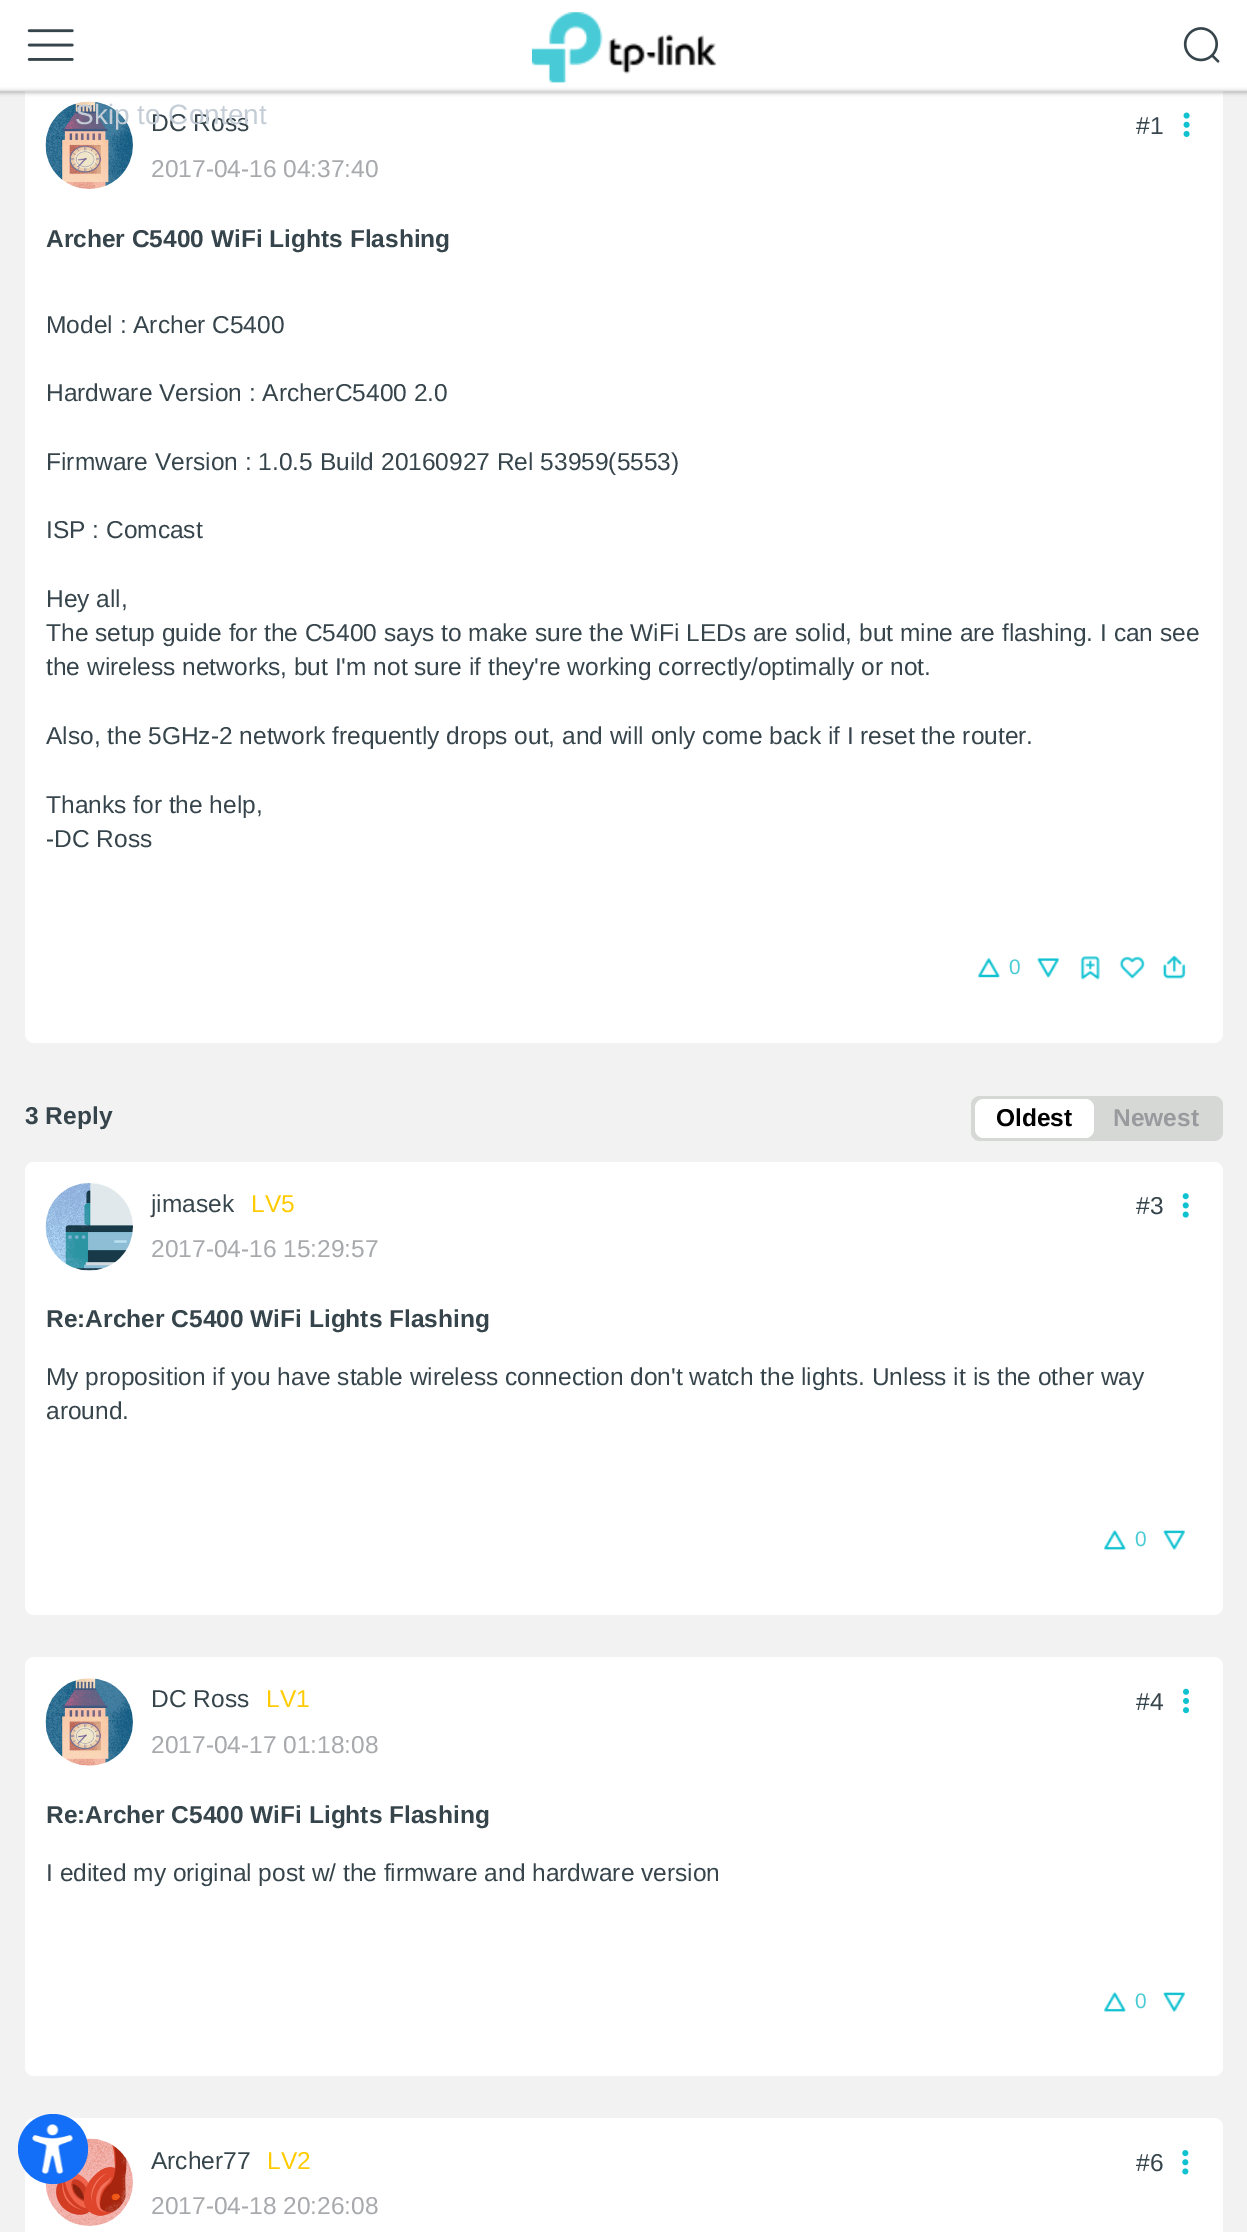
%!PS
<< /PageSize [1247 2232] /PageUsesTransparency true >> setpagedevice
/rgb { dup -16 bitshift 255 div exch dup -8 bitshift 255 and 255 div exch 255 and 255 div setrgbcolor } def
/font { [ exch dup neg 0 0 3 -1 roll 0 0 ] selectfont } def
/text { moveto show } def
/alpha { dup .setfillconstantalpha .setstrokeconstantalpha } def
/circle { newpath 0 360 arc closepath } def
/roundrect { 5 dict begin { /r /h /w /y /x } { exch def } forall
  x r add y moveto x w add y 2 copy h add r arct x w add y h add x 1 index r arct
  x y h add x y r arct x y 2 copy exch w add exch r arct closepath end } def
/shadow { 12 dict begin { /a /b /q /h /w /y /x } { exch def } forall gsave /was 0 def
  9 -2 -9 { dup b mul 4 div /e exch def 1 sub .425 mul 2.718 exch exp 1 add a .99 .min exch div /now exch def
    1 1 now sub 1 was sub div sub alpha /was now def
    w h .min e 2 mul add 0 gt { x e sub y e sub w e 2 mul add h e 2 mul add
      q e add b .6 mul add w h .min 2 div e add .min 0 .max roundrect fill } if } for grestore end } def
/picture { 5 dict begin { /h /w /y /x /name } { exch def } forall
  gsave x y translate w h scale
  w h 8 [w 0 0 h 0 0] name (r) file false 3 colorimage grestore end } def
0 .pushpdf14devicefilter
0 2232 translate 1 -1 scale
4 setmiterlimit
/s1 { /LiberationSans-Regular 24.5 font 16#36444B rgb } def
/s2 { /LiberationSans-Regular 28 font 16#C4CDD6 rgb } def
/s3 { /LiberationSans-Regular 24.5 font 16#A7A9AC rgb } def
/s4 { /LiberationSans-Bold 24.5 font 16#36444B rgb } def
/s5 { /LiberationSans-Regular 21 font 16#4ACBD6 rgb } def
/s6 { /LiberationSans-Bold 24.5 font 16#000000 rgb } def
/s7 { /LiberationSans-Bold 24.5 font 16#989B9D rgb } def
/s8 { /LiberationSans-Regular 24.5 font 16#FFCB00 rgb } def
16#F2F2F2 rgb
0 0 1247 2232 rectfill
16#FFFFFF rgb
25 21 1198 1022 9 roundrect fill
(pic4.raw) 45 101 88 88 picture
s1
(DC Ross) 151 131 text
s2
(Skip to Content) 75 124 text
16#FFFFFF rgb
0 0 1247 91 rectfill
(pic1.raw) 27 29 47 32 picture
(pic2.raw) 532 12 184 71 picture
(pic3.raw) 1183 27 37 36 picture
16#212121 rgb
0 91 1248 2 0 2 0.3 shadow
s3
(2017-04-16 04:37:40) 151 177 text
s4
(Archer C5400 WiFi Lights Flashing) 46 247 text
s1
(Model : Archer C5400) 46 333 text
(Hardware Version : ArcherC5400 2.0) 46 401 text
(Firmware Version : 1.0.5 Build 20160927 Rel 53959\(5553\)) 46 470 text
(ISP : Comcast) 46 538 text
(Hey all,) 46 607 text
(The setup guide for the C5400 says to make sure the WiFi LEDs are solid, but mine are flashing. I can see) 46 641 text
(the wireless networks, but I'm not sure if they're working correctly/optimally or not.) 46 675 text
(Also, the 5GHz-2 network frequently drops out, and will only come back if I reset the router.) 46 744 text
(Thanks for the help,) 46 813 text
(-DC Ross) 46 847 text
(pic5.raw) 978 958 22 20 picture
s5
(0) 1009 974 text
(pic6.raw) 1037 958 22 20 picture
(pic7.raw) 1080 956 20 24 picture
(pic8.raw) 1119 956 26 23 picture
(pic9.raw) 1162 955 24 24 picture
s1
(#1) 1136 134 text
(pic10.raw) 1183 112 7 25 picture
s4
(3 Reply) 25 1124 text
16#D6D8D6 rgb
971 1096 252 45 9 roundrect fill
16#FFFFFF rgb
975 1099 119 39 9 roundrect fill
s6
(Oldest) 996 1126 text
s7
(Newest) 1113 1126 text
16#FFFFFF rgb
25 1162 1198 453 9 roundrect fill
(pic11.raw) 45 1183 88 88 picture
s1
(jimasek) 151 1212 text
s8
(LV5) 251 1212 text
s3
(2017-04-16 15:29:57) 151 1257 text
s1
(#3) 1136 1214 text
(pic12.raw) 1182 1193 7 25 picture
s4
(Re:Archer C5400 WiFi Lights Flashing) 46 1327 text
s1
(My proposition if you have stable wireless connection don't watch the lights. Unless it is the other way) 46 1385 text
(around.) 46 1419 text
(pic13.raw) 1104 1530 22 20 picture
s5
(0) 1135 1546 text
(pic14.raw) 1163 1530 22 20 picture
16#FFFFFF rgb
25 1657 1198 419 9 roundrect fill
(pic15.raw) 45 1678 88 88 picture
s1
(DC Ross) 151 1707 text
s8
(LV1) 266 1707 text
s3
(2017-04-17 01:18:08) 151 1753 text
s1
(#4) 1136 1710 text
(pic16.raw) 1183 1688 7 26 picture
s4
(Re:Archer C5400 WiFi Lights Flashing) 46 1823 text
s1
(I edited my original post w/ the firmware and hardware version) 46 1881 text
(pic13.raw) 1104 1992 22 20 picture
s5
(0) 1135 2008 text
(pic14.raw) 1163 1992 22 20 picture
16#FFFFFF rgb
25 2118 1198 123 9 roundrect fill
(pic17.raw) 45 2138 88 88 picture
s1
(Archer77) 151 2169 text
s8
(LV2) 267 2169 text
s3
(2017-04-18 20:26:08) 151 2214 text
s1
(#6) 1136 2171 text
(pic18.raw) 1182 2150 7 25 picture
16#146FF8 rgb
53 2149 35 circle fill
(pic19.raw) 32 2124 41 50 picture
.poppdf14devicefilter showpage
